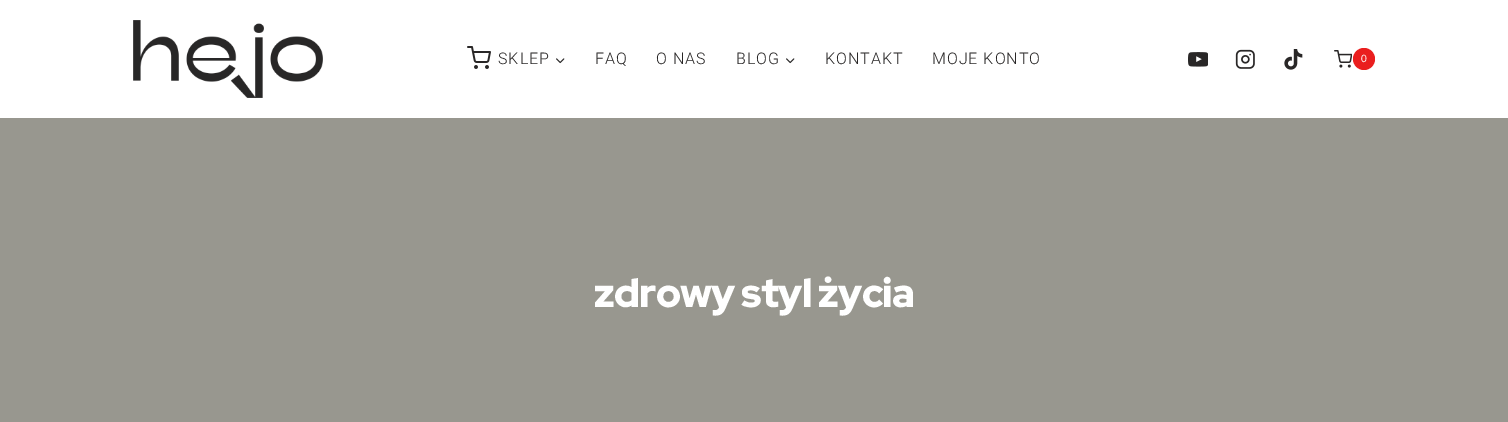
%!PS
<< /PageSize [1508 422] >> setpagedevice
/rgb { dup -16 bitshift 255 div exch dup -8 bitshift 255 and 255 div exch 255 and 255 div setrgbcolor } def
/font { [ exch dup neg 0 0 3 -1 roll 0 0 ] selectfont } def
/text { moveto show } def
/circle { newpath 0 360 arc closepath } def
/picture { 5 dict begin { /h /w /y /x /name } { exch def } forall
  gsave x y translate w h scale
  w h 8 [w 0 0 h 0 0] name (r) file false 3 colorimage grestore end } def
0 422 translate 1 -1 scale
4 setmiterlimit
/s1 { /InterTight-Regular 10 font 16#FFFFFF rgb } def
16#98978F rgb
0 0 1508 422 rectfill
16#FFFFFF rgb
0 0 1508 118 rectfill
(pic1.raw) 133 20 190 78 picture
(pic2.raw) 467 46 24 23 picture
/Roboto-Light 16 font
16#292727 rgb
498 64 moveto 1 0 (SKLEP) ashow
(pic3.raw) 556 58 9 6 picture
595 64 moveto 1 0 (FAQ) ashow
656 64 moveto 1 0 (O NAS) ashow
736 64 moveto 1 0 (BLOG) ashow
(pic3.raw) 786 58 9 6 picture
825 64 moveto 1 0 (KONTAKT) ashow
932 64 moveto 1 0 (MOJE KONTO) ashow
(pic4.raw) 1188 52 20 15 picture
(pic5.raw) 1235 49 20 20 picture
(pic6.raw) 1284 49 19 21 picture
(pic7.raw) 1334 50 18 18 picture
16#EA1E1E rgb
1364 59 11 circle fill
s1
(0) 1361 62 text
/RedHatDisplay-Black 40 font
594 307 moveto -0.75 0 (zdrowy styl życia) ashow
showpage
